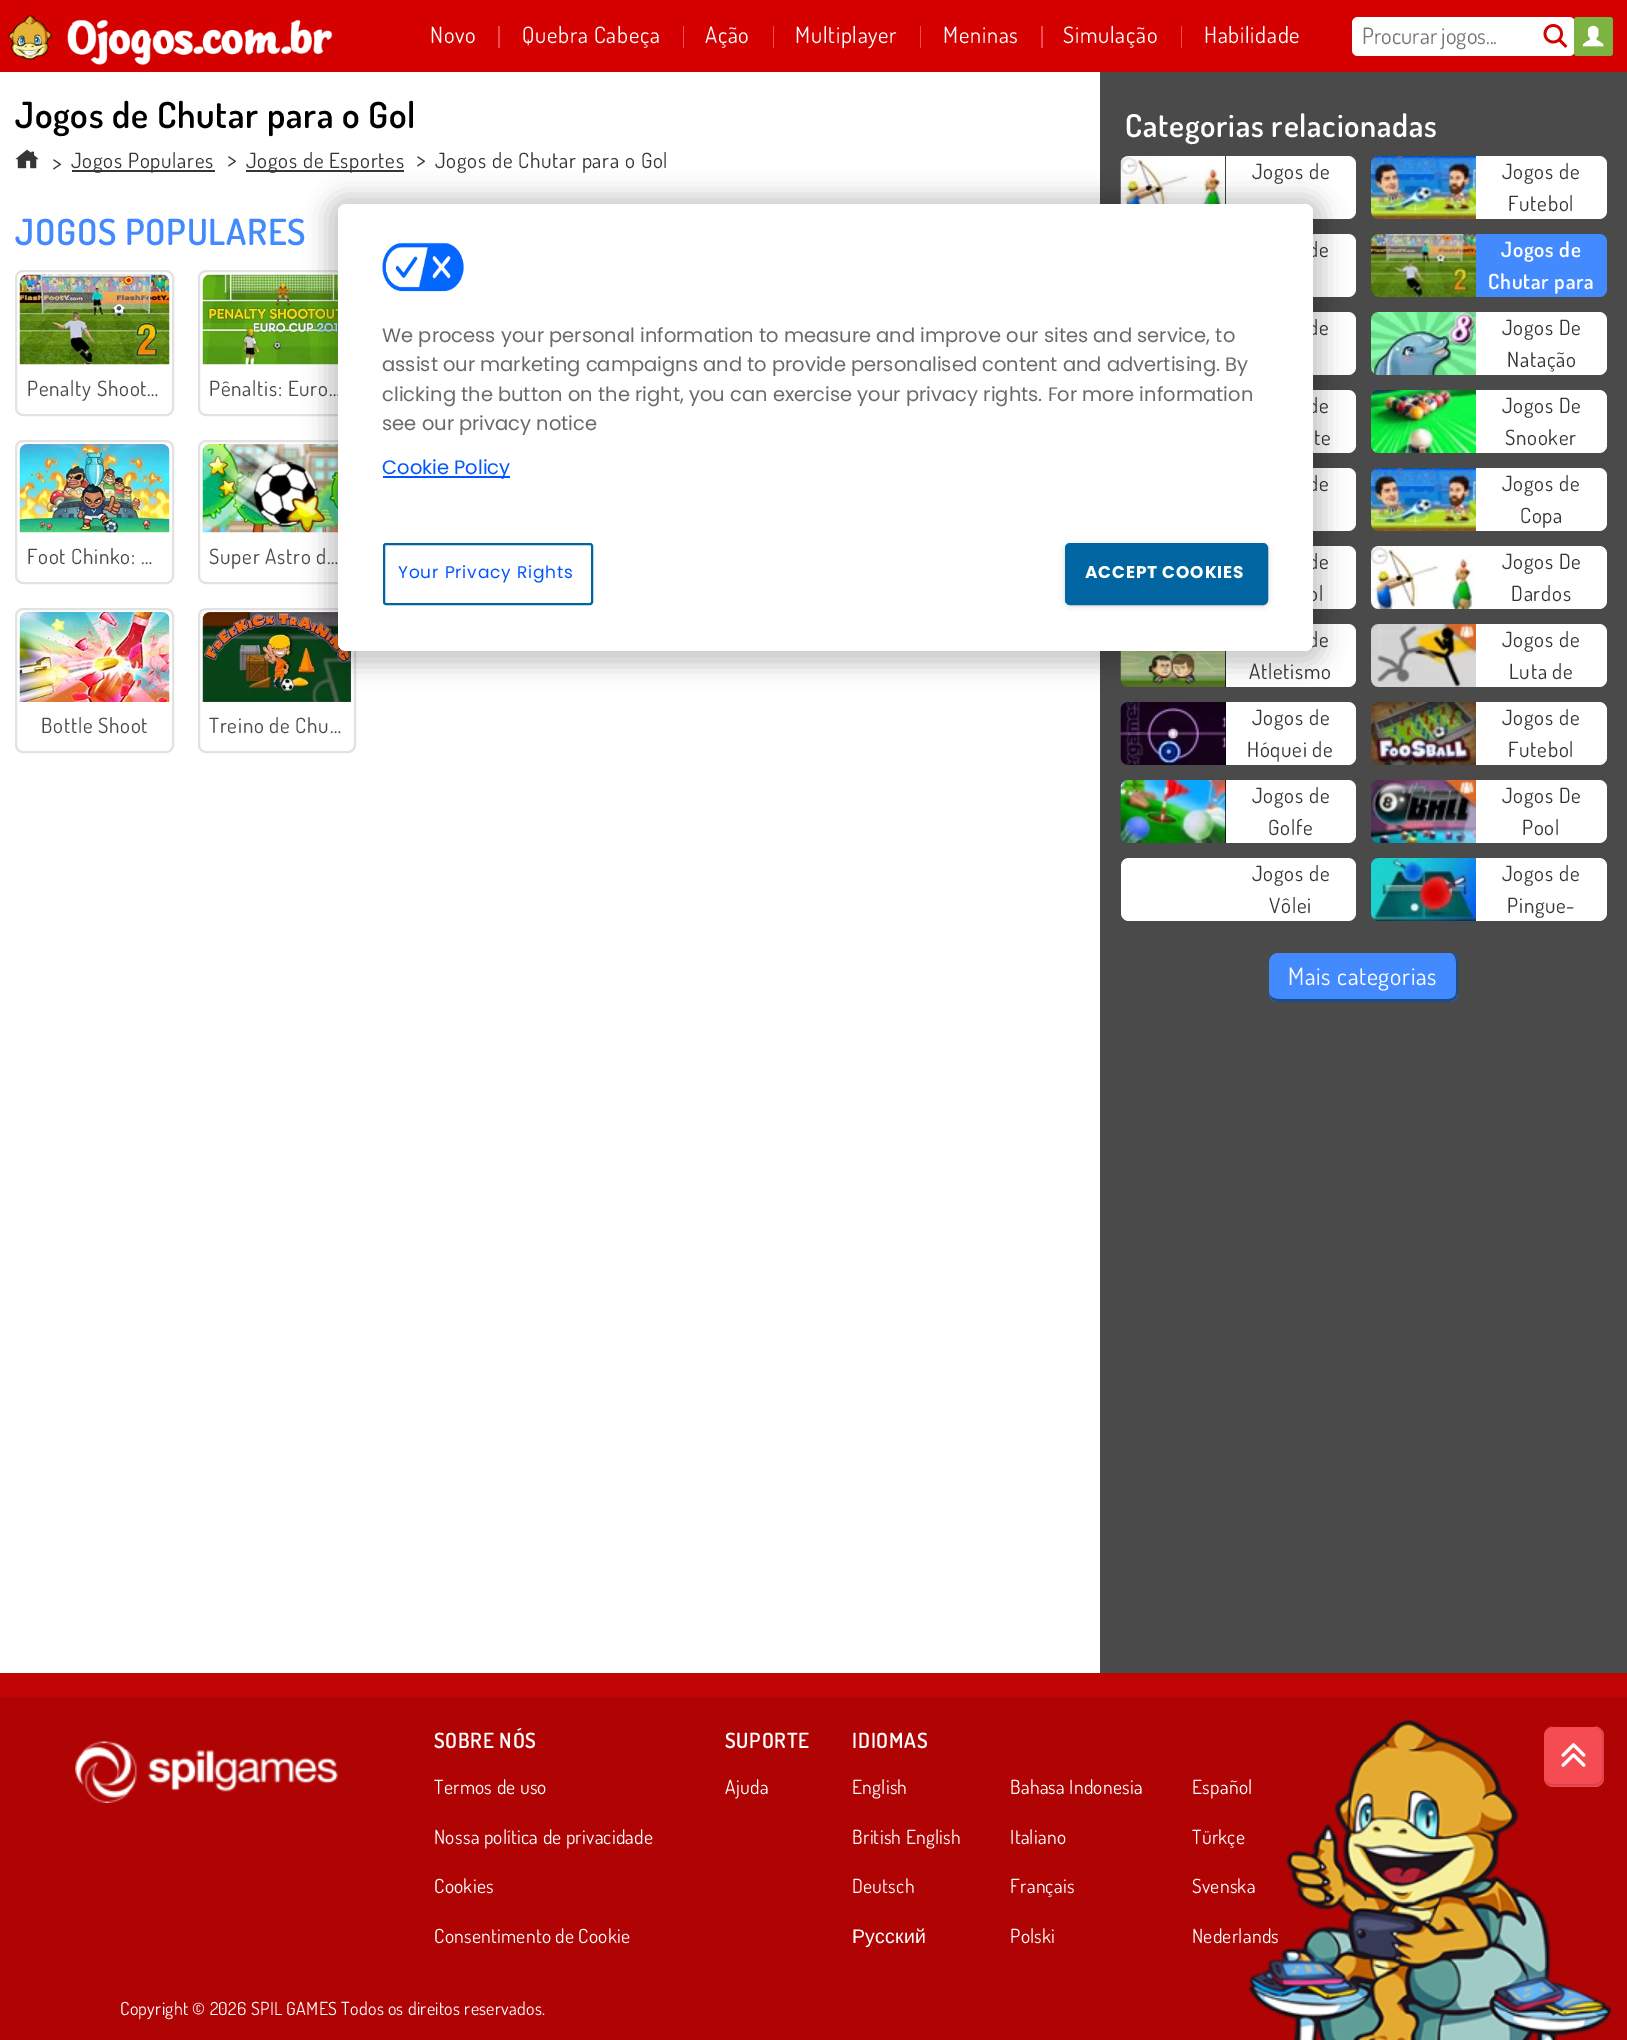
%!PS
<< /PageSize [1627 2040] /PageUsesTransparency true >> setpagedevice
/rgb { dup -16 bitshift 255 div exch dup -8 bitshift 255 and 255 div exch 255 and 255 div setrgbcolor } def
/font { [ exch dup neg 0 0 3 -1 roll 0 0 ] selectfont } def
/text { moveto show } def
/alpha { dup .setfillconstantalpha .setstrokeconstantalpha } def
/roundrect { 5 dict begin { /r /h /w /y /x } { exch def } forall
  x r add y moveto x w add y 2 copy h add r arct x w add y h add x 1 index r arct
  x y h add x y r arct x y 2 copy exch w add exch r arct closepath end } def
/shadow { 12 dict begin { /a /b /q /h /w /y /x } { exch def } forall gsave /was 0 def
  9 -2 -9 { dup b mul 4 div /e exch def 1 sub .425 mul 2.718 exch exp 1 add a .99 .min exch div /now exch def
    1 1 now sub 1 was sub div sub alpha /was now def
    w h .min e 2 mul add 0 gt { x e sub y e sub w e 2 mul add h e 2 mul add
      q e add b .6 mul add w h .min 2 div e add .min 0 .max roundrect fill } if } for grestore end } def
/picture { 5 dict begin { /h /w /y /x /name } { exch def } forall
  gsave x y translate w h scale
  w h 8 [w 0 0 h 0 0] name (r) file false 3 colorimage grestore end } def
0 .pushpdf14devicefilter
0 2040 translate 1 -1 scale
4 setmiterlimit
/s1 { /Dosis-Regular 22.5 font 16#757575 rgb } def
/s2 { /Poppins-Regular 19.5 font 16#696969 rgb } def
/s3 { /Poppins-Regular 19.5 font 16#0055FF rgb } def
16#B00404 rgb
0 0 1627 2040 rectfill
16#D50000 rgb
0 0 1627 72 rectfill
(pic1.raw) 8 15 325 51 picture
/Dosis-Regular 22.5 font
16#FFFFFF rgb
430 43 moveto 0.75 0 (Novo) ashow
16#F54B52 rgb
498 26 2 22 rectfill
16#FFFFFF rgb
522 43 moveto 0.75 0 (Quebra Cabeça) ashow
16#F54B52 rgb
683 26 1 22 rectfill
16#FFFFFF rgb
705 43 moveto 0.75 0 (Ação) ashow
16#F54B52 rgb
773 26 1 22 rectfill
16#FFFFFF rgb
795 43 moveto 0.75 0 (Multiplayer) ashow
16#F54B52 rgb
920 26 1 22 rectfill
16#FFFFFF rgb
943 43 moveto 0.75 0 (Meninas) ashow
16#F54B52 rgb
1041 26 2 22 rectfill
16#FFFFFF rgb
1063 43 moveto 0.75 0 (Simulação) ashow
16#F54B52 rgb
1181 26 1 22 rectfill
16#FFFFFF rgb
1204 43 moveto 0.75 0 (Habilidade) ashow
1352 17 223 39 6 roundrect fill
16#7DB343 rgb
1574 17 39 39 3 roundrect fill
(pic2.raw) 1582 25 22 22 picture
s1
(Procurar jogos...) 1362 44 text
(pic3.raw) 1543 24 25 24 picture
16#FFFFFF rgb
0 72 1100 1601 rectfill
/Dosis-SemiBold 36 font
16#000000 rgb
15 128 moveto 0.75 0 (Jogos de Chutar para o Gol) ashow
(pic4.raw) 15 149 24 20 picture
/Dosis-Regular 24 font
16#363636 rgb
52 171 moveto 0.75 0 (>) ashow
72 170 143 2 rectfill
/Dosis-Regular 21 font
71 168 moveto 0.75 0 (Jogos Populares) ashow
/Dosis-Regular 24 font
227 168 moveto 0.75 0 (>) ashow
246 170 158 2 rectfill
/Dosis-Regular 21 font
246 168 moveto 0.75 0 (Jogos de Esportes) ashow
/Dosis-Regular 24 font
416 168 moveto 0.75 0 (>) ashow
/Dosis-Regular 21 font
435 168 moveto 0.75 0 (Jogos de Chutar para o Gol) ashow
/Dosis-SemiBold 36 font
16#438AFE rgb
15 245 moveto 0.75 0 (JOGOS POPULARES) ashow
16#E2E2E2 rgb
2 setlinewidth
16 271 157 144 7 roundrect stroke
(pic5.raw) 19 274 151 91 picture
/Dosis-Regular 21 font
16#4A4A4A rgb
27 396 moveto 0.75 0 (Penalty Shoot…) ashow
16#E2E2E2 rgb
199 271 156 144 7 roundrect stroke
(pic6.raw) 202 274 136 91 picture
16#4A4A4A rgb
209 396 moveto 0.75 0 (Pênaltis: Euro…) ashow
16#E2E2E2 rgb
16 441 157 142 7 roundrect stroke
(pic7.raw) 19 444 151 89 picture
16#4A4A4A rgb
27 564 moveto 0.75 0 (Foot Chinko: …) ashow
16#E2E2E2 rgb
199 441 156 142 7 roundrect stroke
(pic8.raw) 202 444 136 89 picture
16#4A4A4A rgb
209 564 moveto 0.75 0 (Super Astro d…) ashow
16#E2E2E2 rgb
16 609 157 143 7 roundrect stroke
(pic9.raw) 19 612 151 90 picture
16#4A4A4A rgb
41 733 moveto 0.75 0 (Bottle Shoot) ashow
16#E2E2E2 rgb
199 609 156 143 7 roundrect stroke
(pic10.raw) 202 612 149 90 picture
16#4A4A4A rgb
209 733 moveto 0.75 0 (Treino de Chu…) ashow
1100 72 527 1601 rectfill
/Dosis-SemiBold 31.5 font
16#FFFFFF rgb
1125 137 moveto 0.75 0 (Categorias relacionadas) ashow
1121 156 235 63 8 roundrect fill
16#000000 rgb
1129 156 moveto 1226 156 lineto 1226 219 lineto 1129 219 lineto 1124.5 219 1121 215.5 1121 211 curveto 1121 164 lineto 1121 159.5 1124.5 156 1129 156 curveto closepath fill
(pic11.raw) 1120 156 106 48 picture
/Dosis-Regular 21 font
16#363636 rgb
1252 179 moveto 0.75 0 (Jogos de) ashow
16#FFFFFF rgb
1371 156 236 63 8 roundrect fill
(pic12.raw) 1371 156 105 63 picture
16#363636 rgb
1502 179 moveto 0.75 0 (Jogos de) ashow
1508 211 moveto 0.75 0 (Futebol) ashow
16#FFFFFF rgb
1121 234 235 63 8 roundrect fill
16#363636 rgb
1308 257 moveto 0.75 0 (de) ashow
16#438AFE rgb
1371 234 236 63 8 roundrect fill
(pic13.raw) 1371 234 105 63 picture
/Dosis-SemiBold 21 font
16#FFFFFF rgb
1501 257 moveto 0.75 0 (Jogos de) ashow
1488 289 moveto 0.75 0 (Chutar para) ashow
1121 312 235 63 8 roundrect fill
/Dosis-Regular 21 font
16#363636 rgb
1308 335 moveto 0.75 0 (de) ashow
16#FFFFFF rgb
1371 312 236 63 8 roundrect fill
(pic14.raw) 1371 312 105 63 picture
16#363636 rgb
1502 335 moveto 0.75 0 (Jogos De) ashow
1507 367 moveto 0.75 0 (Natação) ashow
16#FFFFFF rgb
1121 390 235 63 8 roundrect fill
16#363636 rgb
1308 413 moveto 0.75 0 (de) ashow
1314 445 moveto 0.75 0 (te) ashow
16#FFFFFF rgb
1371 390 236 63 8 roundrect fill
(pic15.raw) 1371 390 105 63 picture
16#363636 rgb
1502 413 moveto 0.75 0 (Jogos De) ashow
1505 445 moveto 0.75 0 (Snooker) ashow
16#FFFFFF rgb
1121 468 235 63 8 roundrect fill
16#363636 rgb
1308 491 moveto 0.75 0 (de) ashow
16#FFFFFF rgb
1371 468 236 63 8 roundrect fill
(pic16.raw) 1371 468 105 63 picture
16#363636 rgb
1502 491 moveto 0.75 0 (Jogos de) ashow
1520 523 moveto 0.75 0 (Copa) ashow
16#FFFFFF rgb
1121 546 235 63 8 roundrect fill
16#363636 rgb
1308 569 moveto 0.75 0 (de) ashow
1308 601 moveto 0.75 0 (ol) ashow
16#FFFFFF rgb
1371 546 236 63 8 roundrect fill
(pic17.raw) 1371 546 105 63 picture
16#363636 rgb
1502 569 moveto 0.75 0 (Jogos De) ashow
1511 601 moveto 0.75 0 (Dardos) ashow
16#FFFFFF rgb
1121 624 235 63 8 roundrect fill
16#000000 rgb
1129 624 moveto 1226 624 lineto 1226 687 lineto 1129 687 lineto 1124.5 687 1121 683.5 1121 679 curveto 1121 632 lineto 1121 627.5 1124.5 624 1129 624 curveto closepath fill
(pic18.raw) 1120 651 106 36 picture
16#363636 rgb
1308 647 moveto 0.75 0 (de) ashow
1249 679 moveto 0.75 0 (Atletismo) ashow
16#FFFFFF rgb
1371 624 236 63 8 roundrect fill
(pic19.raw) 1371 624 105 63 picture
16#363636 rgb
1502 647 moveto 0.75 0 (Jogos de) ashow
1509 679 moveto 0.75 0 (Luta de) ashow
16#FFFFFF rgb
1121 702 235 63 8 roundrect fill
16#000000 rgb
1129 702 moveto 1226 702 lineto 1226 765 lineto 1129 765 lineto 1124.5 765 1121 761.5 1121 757 curveto 1121 710 lineto 1121 705.5 1124.5 702 1129 702 curveto closepath fill
(pic20.raw) 1120 702 106 63 picture
16#363636 rgb
1252 725 moveto 0.75 0 (Jogos de) ashow
1247 757 moveto 0.75 0 (Hóquei de) ashow
16#FFFFFF rgb
1371 702 236 63 8 roundrect fill
(pic21.raw) 1371 702 105 63 picture
16#363636 rgb
1502 725 moveto 0.75 0 (Jogos de) ashow
1508 757 moveto 0.75 0 (Futebol) ashow
16#FFFFFF rgb
1121 780 235 63 8 roundrect fill
16#000000 rgb
1129 780 moveto 1226 780 lineto 1226 843 lineto 1129 843 lineto 1124.5 843 1121 839.5 1121 835 curveto 1121 788 lineto 1121 783.5 1124.5 780 1129 780 curveto closepath fill
(pic22.raw) 1120 780 106 63 picture
16#363636 rgb
1252 803 moveto 0.75 0 (Jogos de) ashow
1268 835 moveto 0.75 0 (Golfe) ashow
16#FFFFFF rgb
1371 780 236 63 8 roundrect fill
(pic23.raw) 1371 780 105 63 picture
16#363636 rgb
1502 803 moveto 0.75 0 (Jogos De) ashow
1522 835 moveto 0.75 0 (Pool) ashow
16#FFFFFF rgb
1121 858 235 63 8 roundrect fill
16#363636 rgb
1252 881 moveto 0.75 0 (Jogos de) ashow
1269 913 moveto 0.75 0 (Vôlei) ashow
16#FFFFFF rgb
1371 858 236 63 8 roundrect fill
(pic24.raw) 1371 858 105 63 picture
16#363636 rgb
1502 881 moveto 0.75 0 (Jogos de) ashow
1507 913 moveto 0.75 0 (Pingue-) ashow
16#438AFE rgb
1269 953 189 49 9 roundrect fill
16#1B4D89 rgb
1279 952 moveto 1448 952 lineto 1454 952 1458 957 1458 962 curveto 1458 992 lineto 1458 998 1454 1002 1448 1002 curveto 1279 1002 lineto 1273 1002 1269 998 1269 992 curveto 1269 962 lineto 1269 957 1273 952 1279 952 curveto closepath 1279 952 moveto 1448 952 lineto 1453 952 1456 957 1456 962 curveto 1456 992 lineto 1456 996 1453 999 1448 999 curveto 1279 999 lineto 1273 999 1269 996 1269 992 curveto 1269 962 lineto 1269 957 1273 952 1279 952 curveto closepath eofill
/Dosis-Regular 24 font
16#FFFFFF rgb
1288 985 moveto 0.75 0 (Mais categorias) ashow
16#C10404 rgb
0 1673 1627 24 rectfill
(pic25.raw) 1249 1720 362 320 picture
(pic26.raw) 75 1741 263 62 picture
/Dosis-SemiBold 21 font
16#FFFFFF rgb
434 1748 moveto 0.75 0 (SOBRE NÓS) ashow
/Dosis-Regular 19.5 font
434 1794 moveto 0.3 0 (Termos de uso) ashow
434 1844 moveto 0.3 0 (Nossa política de privacidade) ashow
434 1893 moveto 0.3 0 (Cookies) ashow
434 1943 moveto 0.3 0 (Consentimento de Cookie) ashow
/Dosis-SemiBold 21 font
725 1748 moveto 0.75 0 (SUPORTE) ashow
/Dosis-Regular 19.5 font
725 1794 moveto 0.3 0 (Ajuda) ashow
/Dosis-SemiBold 21 font
852 1748 moveto 0.75 0 (IDIOMAS) ashow
/Dosis-Regular 19.5 font
852 1794 moveto 0.3 0 (English) ashow
1010 1794 moveto 0.3 0 (Bahasa Indonesia) ashow
1192 1794 moveto 0.3 0 (Español) ashow
852 1844 moveto 0.3 0 (British English) ashow
1010 1844 moveto 0.3 0 (Italiano) ashow
1192 1844 moveto 0.3 0 (Türkçe) ashow
852 1893 moveto 0.3 0 (Deutsch) ashow
1010 1893 moveto 0.3 0 (Français) ashow
1192 1893 moveto 0.3 0 (Svenska) ashow
/LiberationSans-Regular 19.5 font
852 1943 moveto 0.3 0 (Русский) ashow
/Dosis-Regular 19.5 font
1010 1943 moveto 0.3 0 (Polski) ashow
1192 1943 moveto 0.3 0 (Nederlands) ashow
16#F54B52 rgb
1544 1727 60 60 9 roundrect fill
16#DD444A rgb
1553 1726 moveto 1594 1726 lineto 1599 1726 1604 1731 1604 1736 curveto 1604 1777 lineto 1604 1782 1599 1786 1594 1786 curveto 1553 1786 lineto 1548 1786 1544 1782 1544 1777 curveto 1544 1736 lineto 1544 1731 1548 1726 1553 1726 curveto closepath 1553 1726 moveto 1594 1726 lineto 1598 1726 1602 1731 1602 1736 curveto 1602 1777 lineto 1602 1781 1598 1784 1594 1784 curveto 1553 1784 lineto 1548 1784 1544 1781 1544 1777 curveto 1544 1736 lineto 1544 1731 1548 1726 1553 1726 curveto closepath eofill
(pic27.raw) 1561 1743 25 24 picture
/Dosis-Regular 18 font
16#FFFFFF rgb
120 2015 moveto 0.3 0 (Copyright © 2026 SPIL GAMES Todos os direitos reservados.) ashow
16#000000 rgb
326 195 999 471 20 11 0.2 shadow
16#FFFFFF rgb
338 204 975 447 8 roundrect fill
(pic28.raw) 382 242 82 50 picture
s2
(We process your personal information to measure and improve our sites and service, to) 382 342 text
(assist our marketing campaigns and to provide personalised content and advertising. By) 382 371 text
(clicking the button on the right, you can exercise your privacy rights. For more information) 382 401 text
(see our privacy notice) 382 430 text
16#0055FF rgb
383 476 127 2 rectfill
(Cookie Policy) 382 474 text
16#0065A0 rgb
384 544 208 60 2 roundrect stroke
/Poppins-Regular 17 font
16#0055FF rgb
398 578 moveto 0.8 0 (Your Privacy Rights) ashow
16#000000 rgb
1065 545 203 61 5 3 0.16 shadow
16#0065A0 rgb
1066 544 201 60 4 roundrect gsave fill grestore
stroke
/Poppins-Bold 17 font
16#FFFFFF rgb
1085 578 moveto 0.8 0 (ACCEPT COOKIES) ashow
.poppdf14devicefilter showpage
